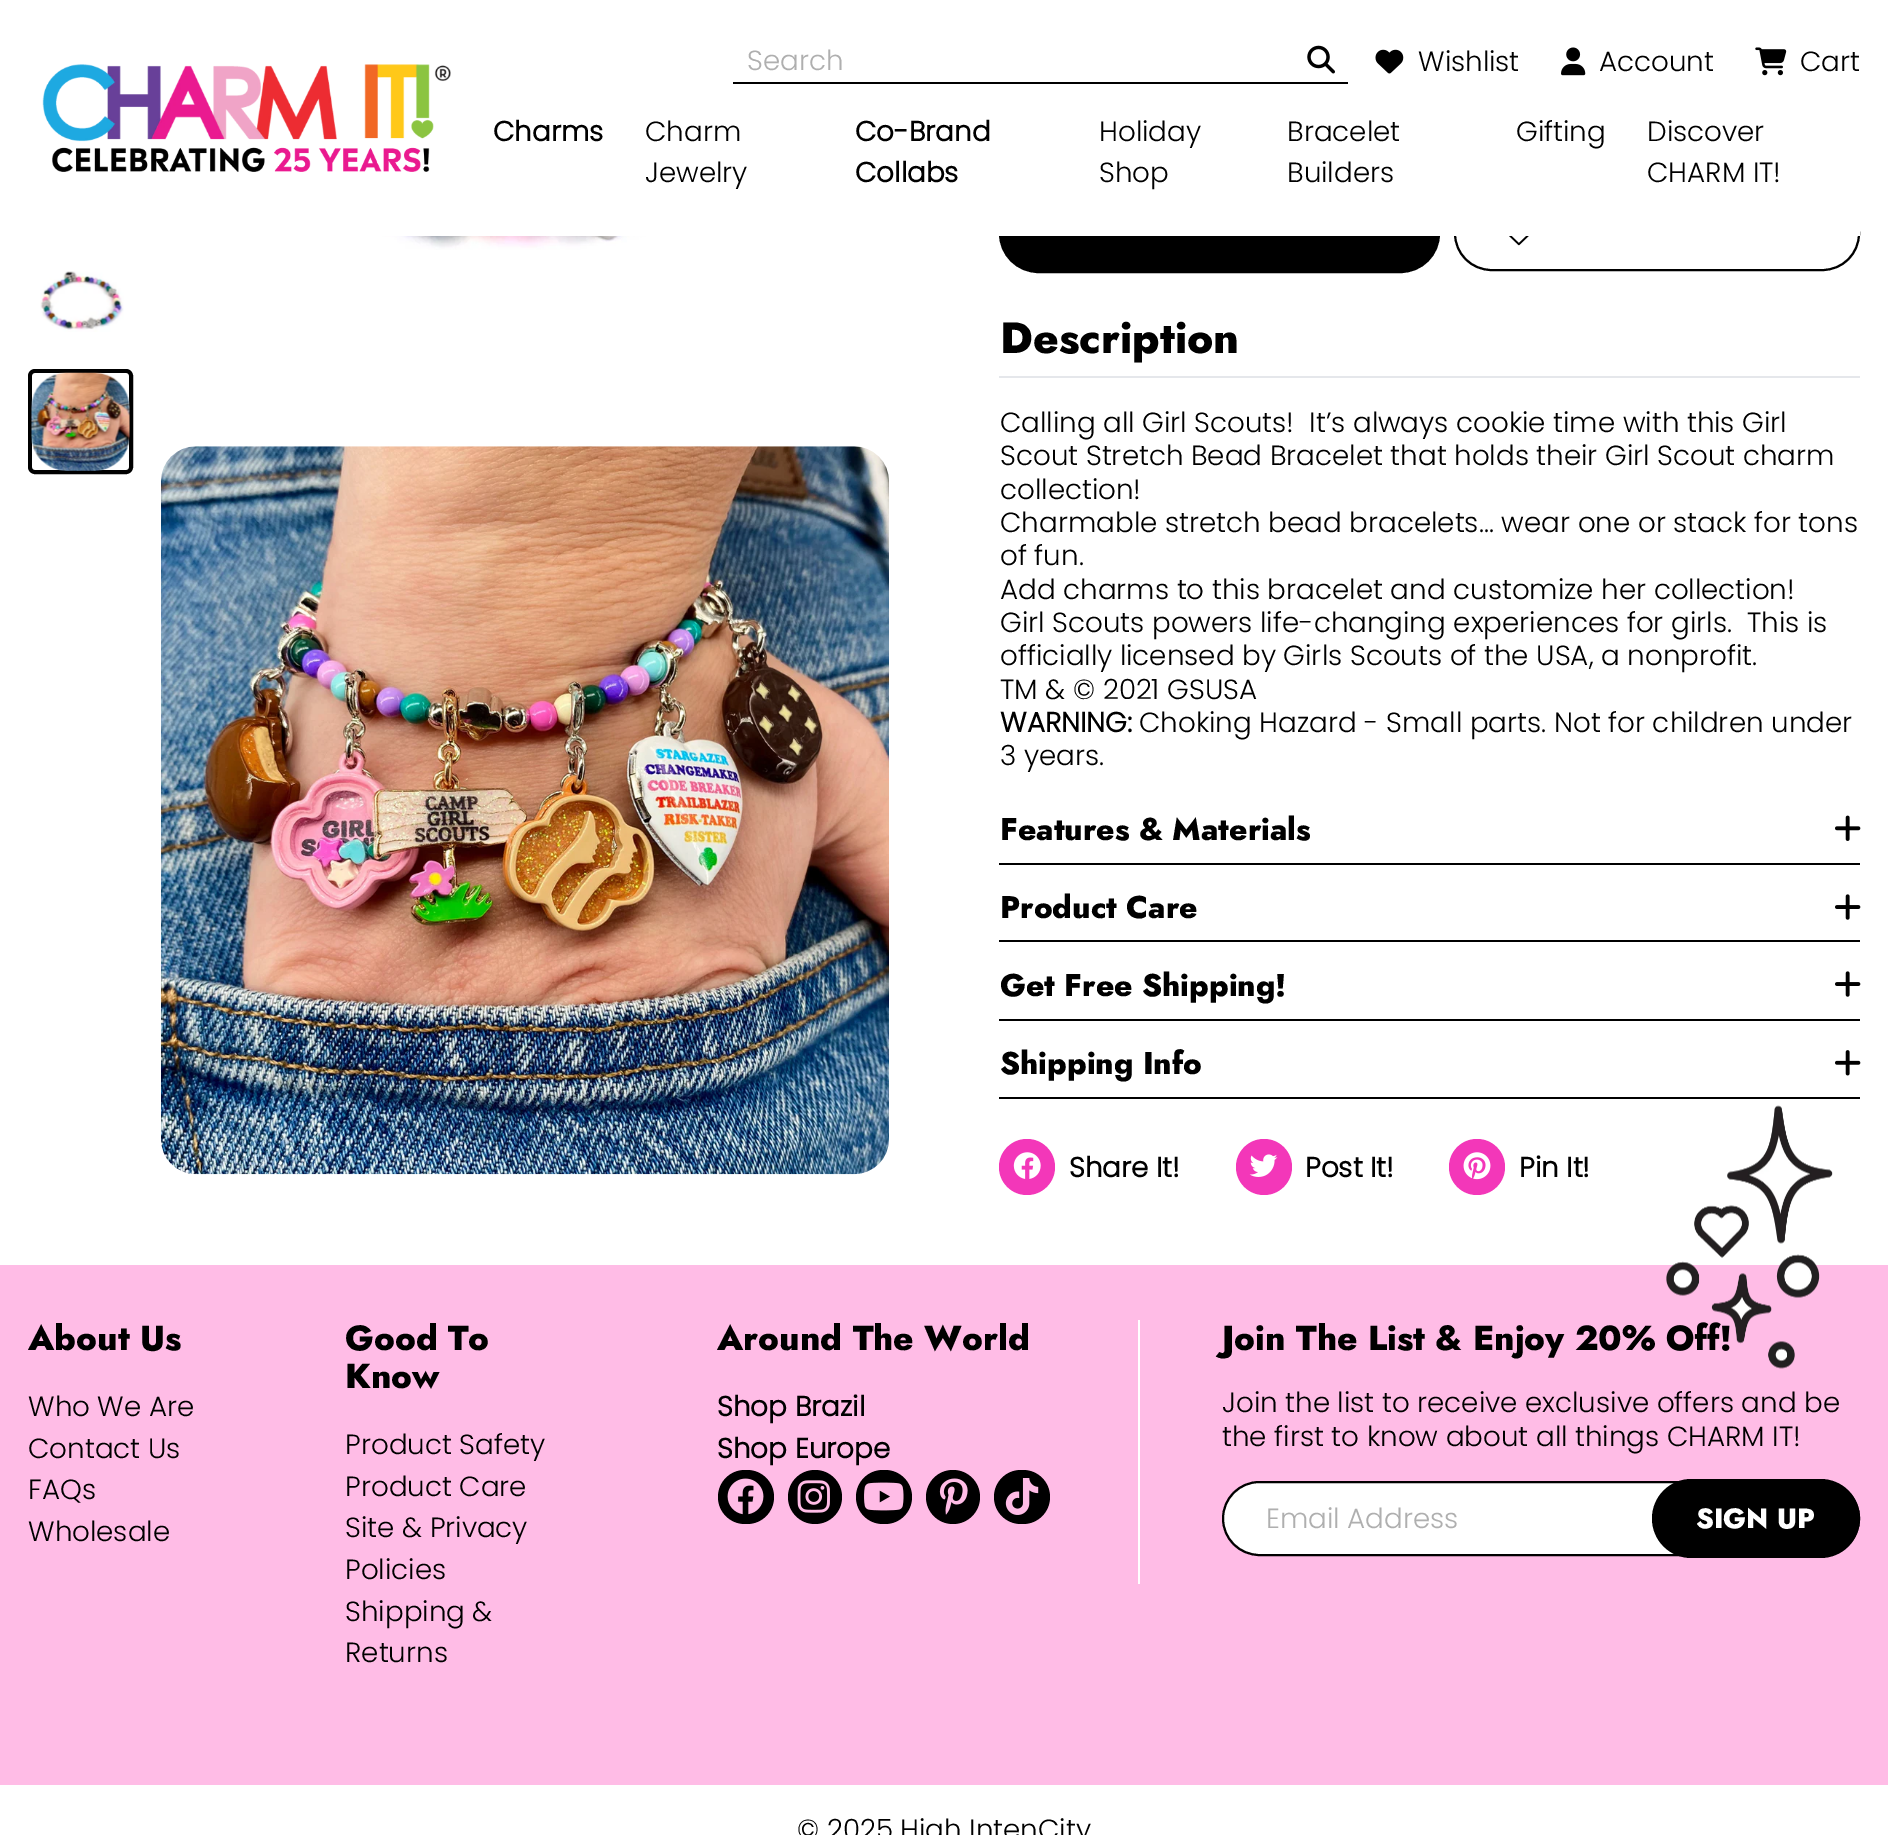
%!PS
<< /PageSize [1888 1835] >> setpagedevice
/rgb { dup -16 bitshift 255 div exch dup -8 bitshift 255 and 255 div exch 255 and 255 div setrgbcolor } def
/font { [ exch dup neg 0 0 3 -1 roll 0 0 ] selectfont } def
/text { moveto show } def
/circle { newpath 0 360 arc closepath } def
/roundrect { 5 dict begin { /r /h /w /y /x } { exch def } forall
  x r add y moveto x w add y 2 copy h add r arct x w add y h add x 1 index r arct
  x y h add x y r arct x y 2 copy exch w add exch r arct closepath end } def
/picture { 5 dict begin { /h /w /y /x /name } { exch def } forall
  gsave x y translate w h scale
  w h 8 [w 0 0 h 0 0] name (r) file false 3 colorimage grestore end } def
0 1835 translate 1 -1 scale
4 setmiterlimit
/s1 { /Poppins-Light 27.75 font 16#AFAFAF rgb } def
/s2 { /Poppins-Light 27.75 font 16#000000 rgb } def
/s3 { /Poppins-Bold 27.75 font 16#000000 rgb } def
/s4 { /Jost-ExtraBold 43.75 font 16#000000 rgb } def
/s5 { /Jost-ExtraBold 31.25 font 16#000000 rgb } def
/s6 { /Jost-ExtraBold 34.75 font 16#000000 rgb } def
/s7 { /Jost-ExtraBold 27.75 font 16#FFFFFF rgb } def
16#FFFFFF rgb
0 0 1888 1835 rectfill
16#000000 rgb
1001 196 437 75 37.5 roundrect gsave fill grestore
4 setlinewidth
stroke
2 setlinewidth
1455 197 404 73 36.5 roundrect stroke
16#FFFFFF rgb
999 194 861 42 rectfill
(pic1.raw) 42 64 409 108 picture
16#000000 rgb
733 82 615 2 rectfill
s1
(Search) 747 70 text
(pic2.raw) 1307 45 28 29 picture
(pic3.raw) 1375 49 29 25 picture
s2
(Wishlist) 1418 71 text
(pic4.raw) 1561 47 25 29 picture
(Account) 1599 71 text
(pic5.raw) 1755 47 32 29 picture
(Cart) 1800 71 text
s3
(Charms) 493 141 text
s2
(Charm) 645 141 text
(Jewelry) 645 182 text
s3
(Co-Brand) 855 141 text
(Collabs) 855 182 text
s2
(Holiday) 1099 141 text
(Shop) 1099 182 text
(Bracelet) 1287 141 text
(Builders) 1287 182 text
(Gifting) 1516 141 text
(Discover) 1647 141 text
(CHARM IT!) 1647 182 text
(pic6.raw) 40 271 84 61 picture
4 setlinewidth
30 371 101 101 5 roundrect stroke
(pic7.raw) 31 372 99 99 picture
(pic8.raw) 227 236 617 14 picture
(pic9.raw) 161 446 728 729 picture
(pic10.raw) 1509 236 20 10 picture
16#E5E7EB rgb
999 376 861 2 rectfill
s4
(Description) 1000 353 text
s2
(Calling all Girl Scouts!  It’s always cookie time with this Girl) 1000 432 text
(Scout Stretch Bead Bracelet that holds their Girl Scout charm) 1000 465 text
(collection!) 1000 499 text
(Charmable stretch bead bracelets... wear one or stack for tons) 1000 532 text
(of fun.) 1000 565 text
(Add charms to this bracelet and customize her collection!) 1000 599 text
(Girl Scouts powers life-changing experiences for girls.  This is) 1000 632 text
(officially licensed by Girls Scouts of the USA, a nonprofit.) 1000 665 text
(TM & © 2021 GSUSA) 1000 699 text
s3
(WARNING:) 1000 732 text
s2
(Choking Hazard - Small parts. Not for children under) 1139 732 text
(3 years.) 1000 765 text
999 863 861 2 rectfill
s5
(Features & Materials) 1000 840 text
(pic11.raw) 1835 815 26 26 picture
999 940 861 2 rectfill
(Product Care) 1000 918 text
(pic12.raw) 1835 894 26 26 picture
999 1019 861 2 rectfill
(Get Free Shipping!) 1000 996 text
(pic12.raw) 1835 971 26 26 picture
999 1097 861 2 rectfill
(Shipping Info) 1000 1074 text
(pic13.raw) 1835 1050 26 26 picture
16#F337B9 rgb
1027 1167 28 circle fill
(pic14.raw) 1013 1152 28 27 picture
s3
(Share It!) 1069 1177 text
16#F337B9 rgb
1264 1167 28 circle fill
(pic15.raw) 1249 1154 29 23 picture
s3
(Post It!) 1305 1177 text
16#F337B9 rgb
1477 1167 28 circle fill
(pic16.raw) 1463 1152 28 28 picture
s3
(Pin It!) 1519 1177 text
16#FFBCE6 rgb
0 1265 1888 520 rectfill
s6
(Join The List & Enjoy 20% Off!) 1222 1350 text
(pic17.raw) 1666 1105 167 264 picture
(About Us) 28 1350 text
s2
(Who We Are) 28 1416 text
(Contact Us) 28 1458 text
(FAQs) 28 1499 text
(Wholesale) 28 1541 text
s6
(Good To) 345 1350 text
(Know) 345 1388 text
s2
(Product Safety) 345 1454 text
(Product Care) 345 1496 text
(Site & Privacy) 345 1537 text
(Policies) 345 1579 text
(Shipping &) 345 1621 text
(Returns) 345 1662 text
s6
(Around The World) 717 1350 text
s3
(Shop Brazil) 717 1416 text
(Shop Europe) 717 1458 text
718 1470 56 54 27 roundrect fill
(pic18.raw) 727 1478 37 37 picture
815 1497 27 circle fill
(pic19.raw) 797 1480 33 33 picture
856 1470 56 54 27 roundrect fill
(pic20.raw) 864 1482 40 29 picture
953 1497 27 circle fill
(pic21.raw) 939 1478 29 37 picture
994 1470 56 54 27 roundrect fill
(pic22.raw) 1005 1478 34 37 picture
16#FFFFFF rgb
1138 1320 2 264 rectfill
s2
(Join the list to receive exclusive offers and be) 1222 1412 text
(the first to know about all things CHARM IT!) 1222 1446 text
16#FFFFFF rgb
1223 1482 636 73 36.5 roundrect gsave fill grestore
16#000000 rgb
2 setlinewidth
stroke
s1
(Email Address) 1266 1528 text
16#000000 rgb
1652 1479 208 79 39.5 roundrect fill
s7
(SIGN UP) 1696 1528 text
s2
(© 2025 High IntenCity) 797 1839 text
showpage
